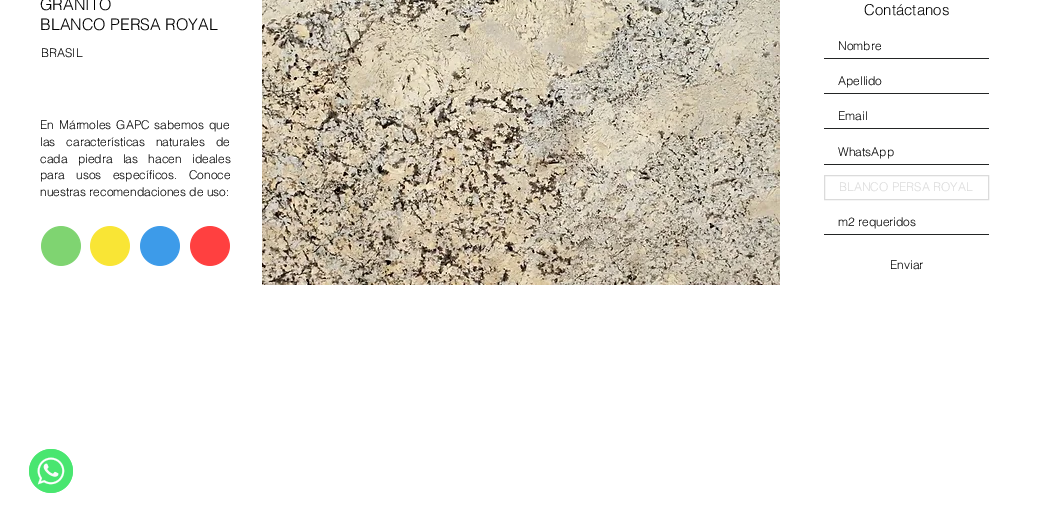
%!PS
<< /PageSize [1040 518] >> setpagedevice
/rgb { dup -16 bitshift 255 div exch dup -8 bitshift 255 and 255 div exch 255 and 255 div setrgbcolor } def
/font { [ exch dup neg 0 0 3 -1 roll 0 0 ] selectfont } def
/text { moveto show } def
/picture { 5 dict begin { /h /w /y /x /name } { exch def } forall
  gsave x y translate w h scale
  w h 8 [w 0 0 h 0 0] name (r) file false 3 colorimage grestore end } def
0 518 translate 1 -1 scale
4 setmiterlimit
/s1 { /helvetica-Light 16 font 16#000000 rgb } def
/s2 { /helvetica-Light 15 font 16#000000 rgb } def
/s3 { /helvetica-Light 12 font 16#000000 rgb } def
/s4 { /helvetica-Light 12 font 16#DBDBDB rgb } def
16#FFFFFF rgb
0 0 1040 518 rectfill
s1
(GRANITO) 40 10 text
(pic1.raw) 262 0 518 285 picture
s2
(Contáctanos) 864 15 text
16#232525 rgb
824 58 165 1 rectfill
s3
(Nombre) 838 50 text
16#232525 rgb
824 93 165 1 rectfill
s3
(Apellido) 838 85 text
16#232525 rgb
824 128 165 1 rectfill
s3
(Email) 838 120 text
16#232525 rgb
824 164 165 1 rectfill
s3
(WhatsApp) 838 156 text
16#DBDBDB rgb
824.5 175.5 164 24 rectstroke
(BLANCO PERSA ROYAL) 839 191 text
16#232525 rgb
824 234 165 1 rectfill
s3
(m2 requeridos) 838 226 text
(Enviar) 890 269 text
s1
(BLANCO PERSA ROYAL) 40 30 text
s3
(BRASIL) 41 57 text
40 129 moveto 1.5 0 32 (En Mármoles GAPC sabemos que) widthshow
40 146 moveto 7.5 0 32 (las características naturales de) widthshow
40 163 moveto 7 0 32 (cada piedra las hacen ideales) widthshow
40 179 moveto 8 0 32 (para usos específicos. Conoce) widthshow
(nuestras recomendaciones de uso:) 40 196 text
(pic2.raw) 41 226 40 40 picture
(pic3.raw) 90 226 40 40 picture
(pic4.raw) 140 226 40 40 picture
(pic5.raw) 190 226 40 40 picture
(pic6.raw) 29 449 44 44 picture
showpage
